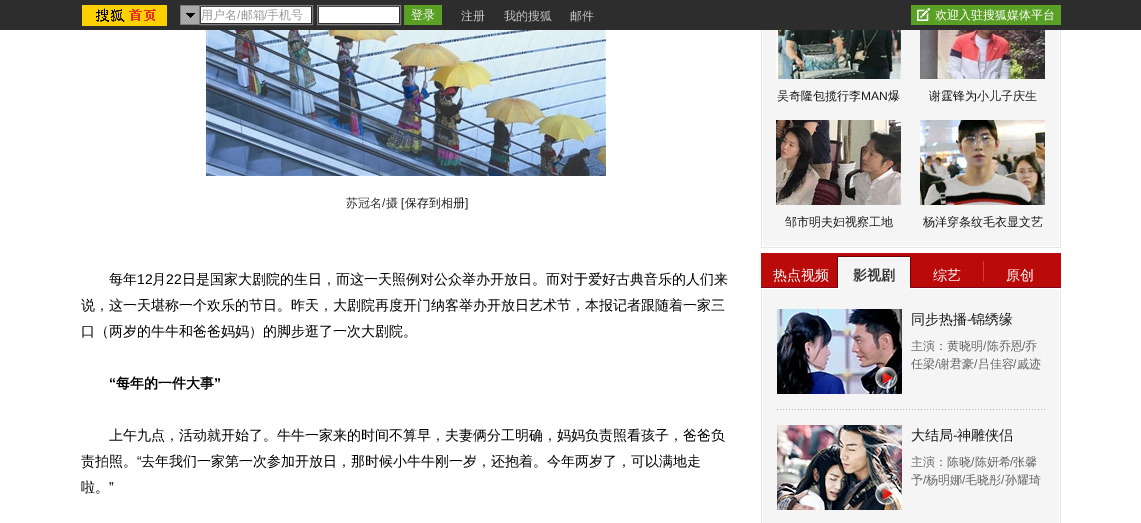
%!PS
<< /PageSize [1141 523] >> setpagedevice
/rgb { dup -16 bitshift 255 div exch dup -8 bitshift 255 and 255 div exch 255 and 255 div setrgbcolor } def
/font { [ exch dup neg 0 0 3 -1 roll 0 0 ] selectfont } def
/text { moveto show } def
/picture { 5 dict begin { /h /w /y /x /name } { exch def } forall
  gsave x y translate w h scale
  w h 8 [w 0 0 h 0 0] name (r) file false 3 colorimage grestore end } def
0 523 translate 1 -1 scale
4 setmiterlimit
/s1 { /WenQuanYiZenHei-Medium 12 font 16#999999 rgb } def
/s2 { /LiberationSans-Regular 12 font 16#999999 rgb } def
/s3 { /WenQuanYiZenHei-Medium 12 font 16#FFFFFF rgb } def
/s4 { /WenQuanYiZenHei-Medium 12 font 16#C1C1C1 rgb } def
/s5 { /WenQuanYiZenHei-Medium 12 font 16#333333 rgb } def
/s6 { /LiberationSans-Regular 12 font 16#333333 rgb } def
/s7 { /LiberationSans-Regular 12 font 16#191919 rgb } def
/s8 { /WenQuanYiZenHei-Medium 12 font 16#191919 rgb } def
/s9 { /WenQuanYiZenHei-Medium 14 font 16#000000 rgb } def
/s10 { /LiberationSans-Regular 14 font 16#000000 rgb } def
/s11 { /LiberationSans-Bold 14 font 16#000000 rgb } def
/s12 { /WenQuanYiZenHei-Bold 14 font 16#000000 rgb } def
/s13 { /WenQuanYiZenHei-Medium 14 font 16#FFFFFF rgb } def
/s14 { /WenQuanYiZenHei-Bold 14 font 16#333333 rgb } def
/s15 { /WenQuanYiZenHei-Medium 14 font 16#191919 rgb } def
/s16 { /LiberationSans-Regular 14 font 16#191919 rgb } def
/s17 { /WenQuanYiZenHei-Medium 12 font 16#666666 rgb } def
/s18 { /LiberationSans-Regular 12 font 16#666666 rgb } def
16#FFFFFF rgb
0 0 1141 523 rectfill
16#2D2D2D rgb
0 0 1141 30 rectfill
(pic1.raw) 82 5 85 21 picture
16#A9A9A9 rgb
181 6 18 18 rectfill
(pic2.raw) 186 13 9 5 picture
16#7D7D7D rgb
180 5 19 1 rectfill
180 24 19 1 rectfill
180 5 1 20 rectfill
199.5 5.5 113 19 rectstroke
16#FFFFFF rgb
201 7 110 16 rectfill
s1
(用户名 邮箱) 201 19 text
s2
(/) 264 19 text
s1
(手机号) 267 19 text
s2
(/) 237 19 text
16#7D7D7D rgb
317.5 5.5 83 19 rectstroke
16#FFFFFF rgb
319 7 80 16 rectfill
16#5AA024 rgb
404 5 38 20 rectfill
s3
(登录) 411 19 text
s4
(注册) 461 20 text
(我的搜狐) 504 20 text
(邮件) 570 20 text
16#5AA024 rgb
911 5 150 20 rectfill
(pic3.raw) 917 8 13 13 picture
s3
(欢迎入驻搜狐媒体平台) 935 19 text
(pic4.raw) 761 30 300 493 picture
(pic5.raw) 206 30 400 146 picture
s5
(苏冠名) 346 207 text
s6
(/) 382 207 text
s5
(摄) 386 207 text
s7
([) 401 207 text
s8
(保存到相册) 405 207 text
s7
(]) 465 207 text
s9
(每年) 109 284 text
s10
(12) 137 284 text
s9
(月) 152 284 text
s10
(22) 166 284 text
s9
(日是国家大剧院的生日，而这一天照例对公众举办开放日。而对于爱好古典音乐的人们来) 182 284 text
(说，这一天堪称一个欢乐的节日。昨天，大剧院再度开门纳客举办开放日艺术节，本报记者跟随着一家三) 81 310 text
(口（两岁的牛牛和爸爸妈妈）的脚步逛了一次大剧院。) 81 336 text
s11
(“) 109 388 text
s12
(每年的一件大事) 116 388 text
s11
(”) 214 388 text
s9
(上午九点，活动就开始了。牛牛一家来的时间不算早，夫妻俩分工明确，妈妈负责照看孩子，爸爸负) 109 440 text
(责拍照。) 81 466 text
s10
(“) 137 466 text
s9
(去年我们一家第一次参加开放日，那时候小牛牛刚一岁，还抱着。今年两岁了，可以满地走) 141 466 text
(啦。) 81 492 text
s10
(”) 109 492 text
(pic6.raw) 776 30 125 49 picture
s8
(吴奇隆包揽行李) 777 100 text
s7
(MAN) 861 100 text
s8
(爆) 888 100 text
(pic7.raw) 920 30 125 49 picture
(谢霆锋为小儿子庆生) 929 100 text
(pic8.raw) 776 120 125 85 picture
(邹市明夫妇视察工地) 785 226 text
(pic9.raw) 920 120 125 85 picture
(杨洋穿条纹毛衣显文艺) 923 226 text
(pic10.raw) 762 246 298 2 picture
16#FFFFFF rgb
761 248 300 5 rectfill
(pic11.raw) 761 253 300 36 picture
s13
(热点视频) 773 280 text
(pic12.raw) 837 256 74 33 picture
s14
(影视剧) 853 280 text
16#E53737 rgb
983 261 1 20 rectfill
s13
(综艺) 933 280 text
(原创) 1006 280 text
(pic13.raw) 777 309 125 85 picture
(pic14.raw) 875 367 23 22 picture
s15
(同步热播) 911 324 text
s16
(-) 967 324 text
s15
(锦绣缘) 971 324 text
s17
(主演：黄晓明 陈乔恩) 911 350 text
s18
(/) 1022 350 text
s17
(乔) 1025 350 text
s18
(/) 983 350 text
s17
(任梁) 911 368 text
s18
(/) 935 368 text
s17
(谢君豪 吕佳容) 938 368 text
s18
(/) 1013 368 text
s17
(戚迹) 1017 368 text
s18
(/) 974 368 text
(pic15.raw) 777 409 268 1 picture
(pic16.raw) 777 425 125 85 picture
(pic17.raw) 875 483 22 22 picture
s15
(大结局) 911 440 text
s16
(-) 953 440 text
s15
(神雕侠侣) 957 440 text
s17
(主演：陈晓 陈妍希) 911 466 text
s18
(/) 1010 466 text
s17
(张馨) 1013 466 text
s18
(/) 971 466 text
s17
(予) 911 484 text
s18
(/) 923 484 text
s17
(杨明娜) 926 484 text
s18
(/) 962 484 text
s17
(毛晓彤) 965 484 text
s18
(/) 1001 484 text
s17
(孙耀琦) 1005 484 text
showpage
